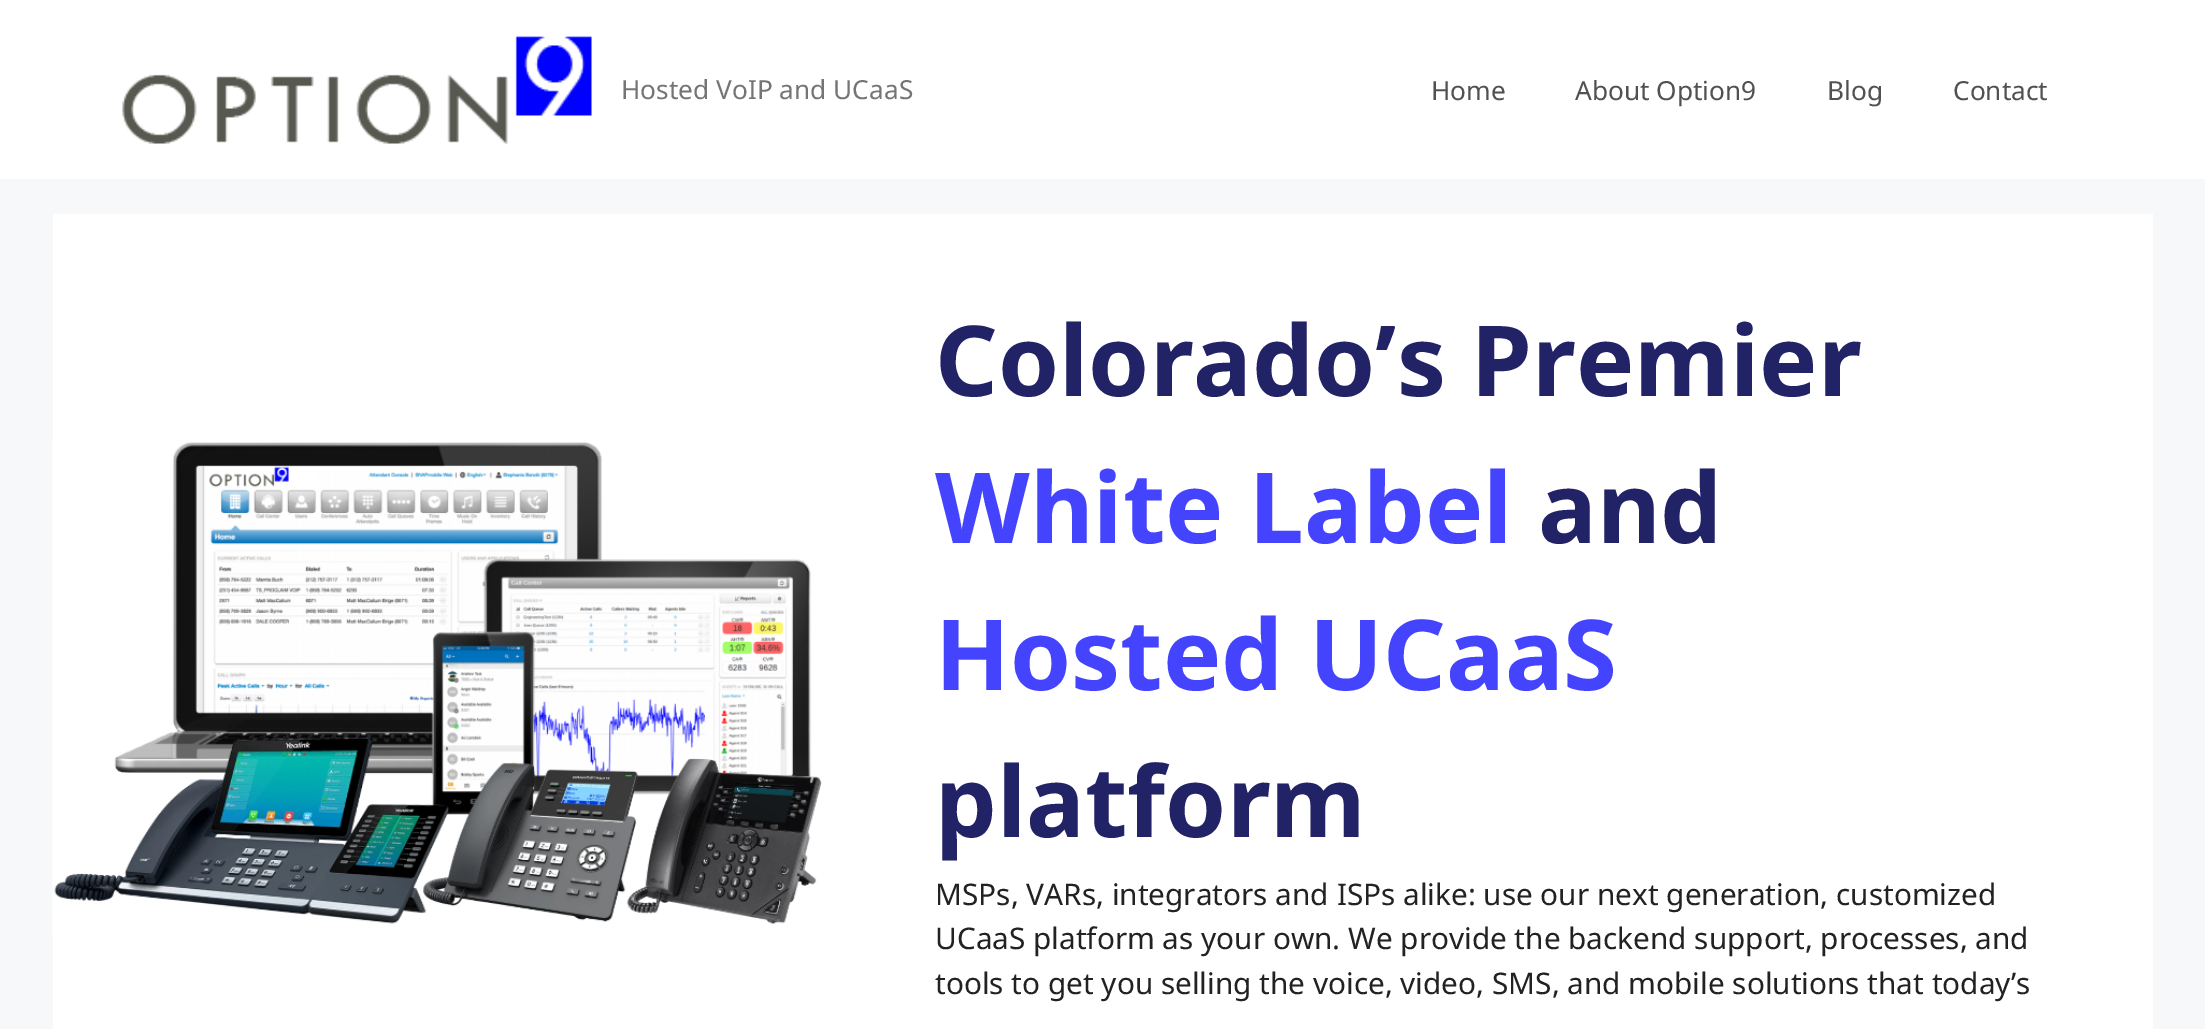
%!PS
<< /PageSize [2205 1029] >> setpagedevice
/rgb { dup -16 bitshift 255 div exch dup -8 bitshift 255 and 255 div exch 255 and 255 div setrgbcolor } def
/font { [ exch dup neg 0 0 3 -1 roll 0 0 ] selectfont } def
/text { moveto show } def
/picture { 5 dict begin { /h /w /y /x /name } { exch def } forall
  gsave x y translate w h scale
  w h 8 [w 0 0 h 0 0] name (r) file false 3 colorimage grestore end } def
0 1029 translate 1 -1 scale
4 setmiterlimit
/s1 { /NotoSans-Regular 26.25 font 16#757575 rgb } def
/s2 { /NotoSans-Regular 26.25 font 16#515151 rgb } def
/s3 { /NotoSans-Bold 98 font 16#222266 rgb } def
/s4 { /NotoSans-Bold 98 font 16#4444FF rgb } def
/s5 { /NotoSans-Regular 29.75 font 16#222222 rgb } def
16#F7F8F9 rgb
0 0 2205 1029 rectfill
16#FFFFFF rgb
0 0 2205 179 rectfill
(pic1.raw) 122 36 470 108 picture
s1
(Hosted VoIP and UCaaS) 621 99 text
s2
(Home) 1431 100 text
(About Option9) 1575 100 text
(Blog) 1827 100 text
(Contact) 1953 100 text
16#FFFFFF rgb
53 214 2100 815 rectfill
(pic2.raw) 52 441 770 495 picture
s3
(Colorado’s Premier) 935 396 text
s4
(White Label) 935 543 text
s3
(and) 1538 543 text
s4
(Hosted UCaaS) 935 690 text
s3
(platform) 935 837 text
s5
(MSPs, VARs, integrators and ISPs alike: use our next generation, customized) 935 905 text
(UCaaS platform as your own. We provide the backend support, processes, and) 935 949 text
(tools to get you selling the voice, video, SMS, and mobile solutions that today’s) 935 994 text
showpage
